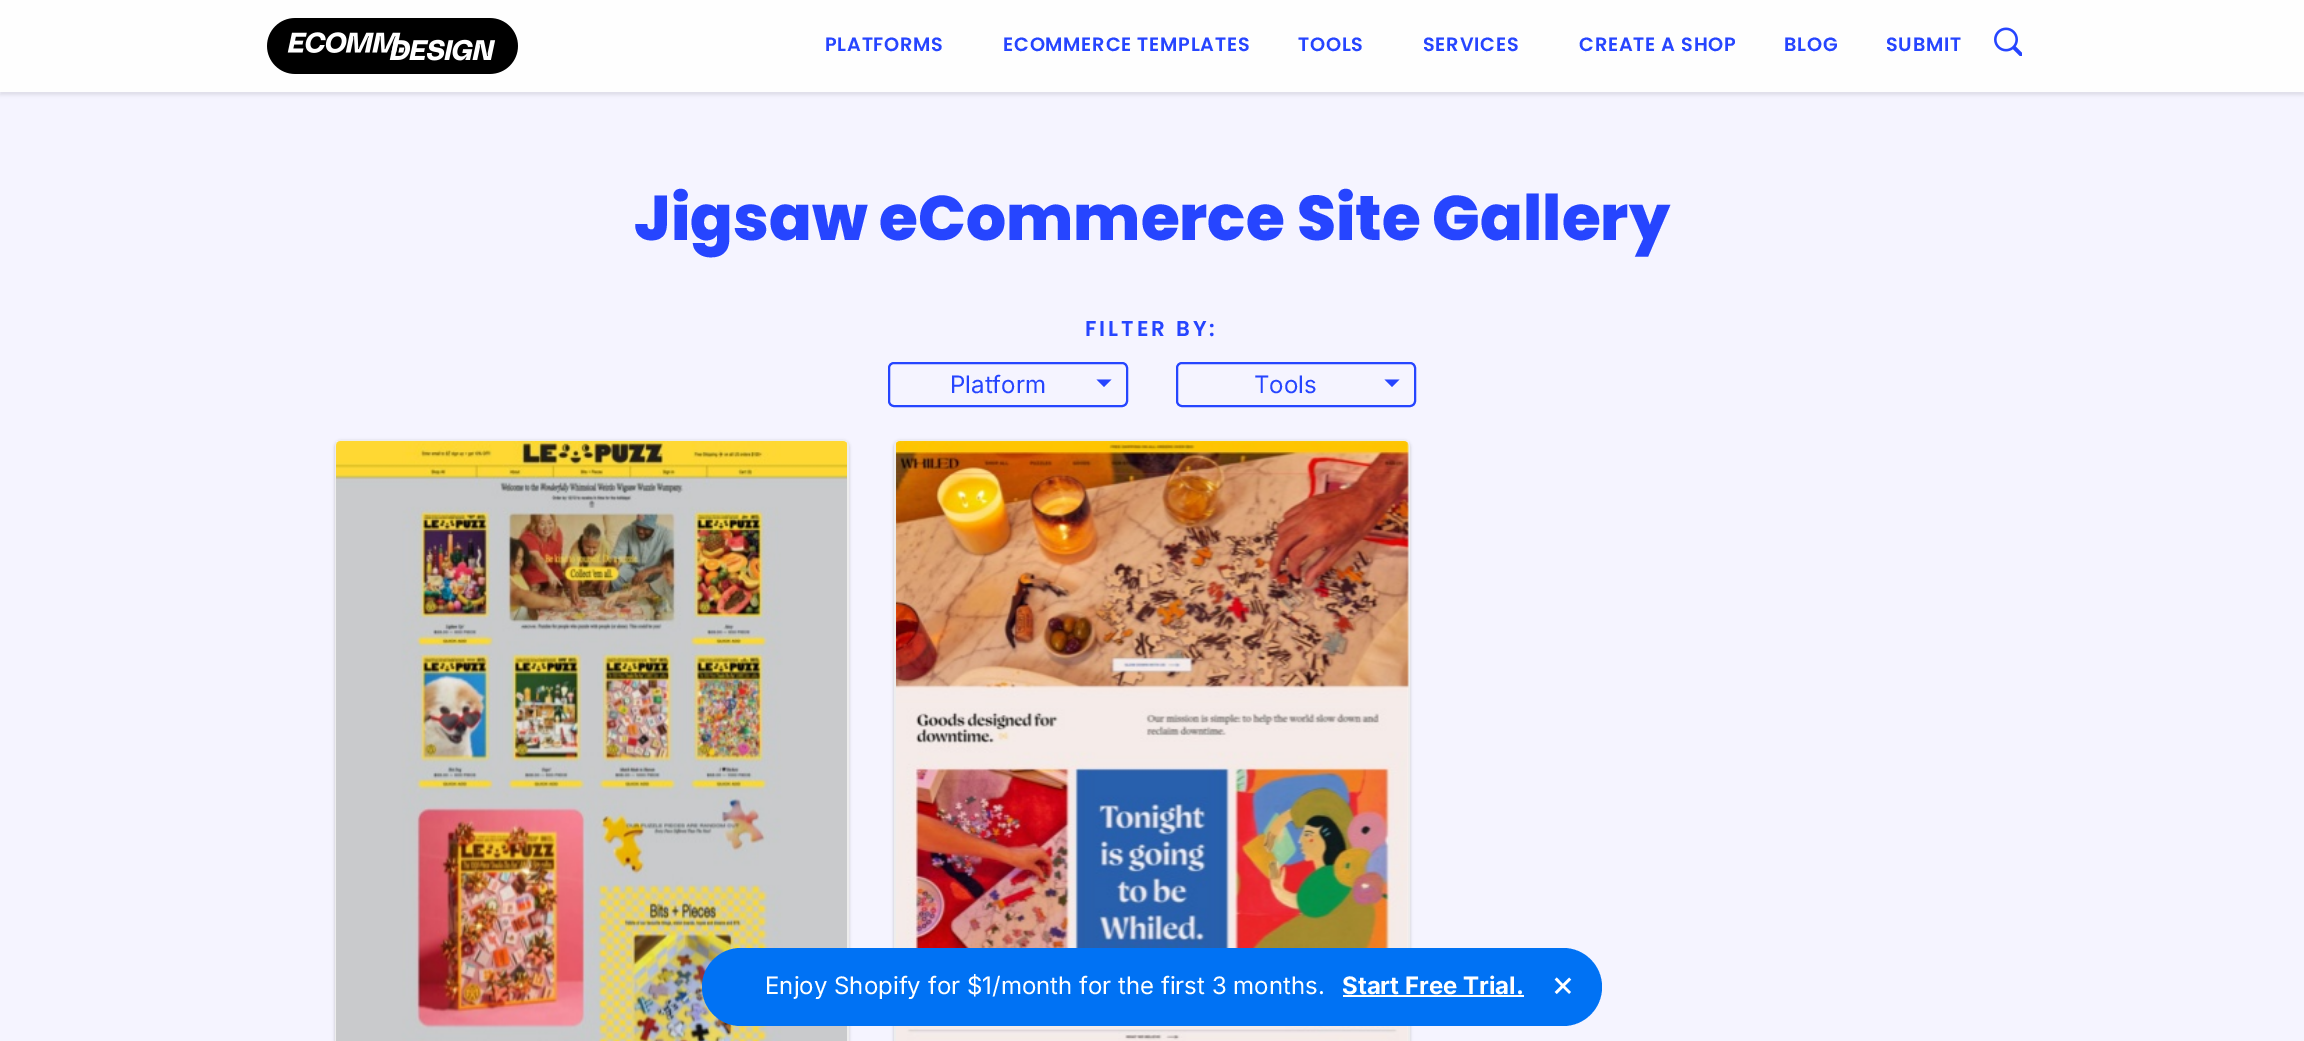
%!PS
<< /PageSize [2304 1041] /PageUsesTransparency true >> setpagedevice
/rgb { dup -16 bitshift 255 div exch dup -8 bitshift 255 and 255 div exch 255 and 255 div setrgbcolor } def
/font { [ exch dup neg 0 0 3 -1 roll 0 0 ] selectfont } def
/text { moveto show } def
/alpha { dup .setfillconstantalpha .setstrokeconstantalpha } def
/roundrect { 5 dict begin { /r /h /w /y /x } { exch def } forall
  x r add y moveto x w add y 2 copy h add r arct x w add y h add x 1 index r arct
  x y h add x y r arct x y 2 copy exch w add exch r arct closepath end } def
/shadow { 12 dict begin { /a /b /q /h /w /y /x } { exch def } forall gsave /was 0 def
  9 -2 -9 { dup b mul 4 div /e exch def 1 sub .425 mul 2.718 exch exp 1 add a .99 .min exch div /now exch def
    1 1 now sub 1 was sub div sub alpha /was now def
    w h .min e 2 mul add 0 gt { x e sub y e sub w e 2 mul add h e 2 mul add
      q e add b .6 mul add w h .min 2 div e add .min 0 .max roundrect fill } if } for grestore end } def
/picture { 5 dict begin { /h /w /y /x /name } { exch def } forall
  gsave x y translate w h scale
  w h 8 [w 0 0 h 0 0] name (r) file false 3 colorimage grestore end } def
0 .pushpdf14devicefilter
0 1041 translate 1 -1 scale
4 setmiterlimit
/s1 { /Poppins-ExtraBold 63 font 16#2645FF rgb } def
/s2 { /Inter-Regular 24 font 16#2645FF rgb } def
/s3 { /Inter-Regular 24 font 16#FFFFFF rgb } def
/s4 { /Inter-Bold 24 font 16#FFFFFF rgb } def
/s5 { /Inter-Regular 36 font 16#FFFFFF rgb } def
16#F5F4FF rgb
0 0 2304 1041 rectfill
16#323232 rgb
0 3 2304 92 0 1.5 0.1 shadow
16#FEFEFE rgb
0 0 2304 92 rectfill
(pic1.raw) 267 18 251 56 picture
/Poppins-SemiBold 19.25 font
16#2645FF rgb
825 51 moveto 0.75 0 (PLATFORMS) ashow
1003 51 moveto 0.75 0 (ECOMMERCE TEMPLATES) ashow
1298 51 moveto 0.75 0 (TOOLS) ashow
1423 51 moveto 0.75 0 (SERVICES) ashow
1579 51 moveto 0.75 0 (CREATE A SHOP) ashow
1784 51 moveto 0.75 0 (BLOG) ashow
1886 51 moveto 0.75 0 (SUBMIT) ashow
(pic2.raw) 1994 27 28 29 picture
s1
(Jigsaw eCommerce Site Gallery) 634 240 text
/Poppins-SemiBold 21.5 font
1085 336 moveto 3 0 (FILTER BY:) ashow
2 setlinewidth
889 363 238 43 5 roundrect stroke
s2
(Platform) 950 393 text
1096.5 379.5 moveto 1111.5 379.5 lineto 1104 387 lineto closepath fill
1177 363 238 43 5 roundrect stroke
(Tools) 1254 393 text
1384.5 379.5 moveto 1399.5 379.5 lineto 1392 387 lineto closepath fill
16#000000 rgb
335 441 514 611 6 1.5 0.2 shadow
16#EDEDED rgb
336 441 512 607 5 roundrect stroke
(pic3.raw) 336 441 511 600 picture
16#000000 rgb
894 441 516 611 6 1.5 0.2 shadow
16#EDEDED rgb
895 441 514 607 5 roundrect stroke
(pic4.raw) 896 441 513 600 picture
16#0072F4 rgb
702 948 900 78 39 roundrect fill
s3
(Enjoy Shopify for $1/month for the first 3 months.) 765 994 text
s4
(Start Free Trial.) 1342 994 text
1343 995 181 2 rectfill
s5
(×) 1551 996 text
.poppdf14devicefilter showpage
